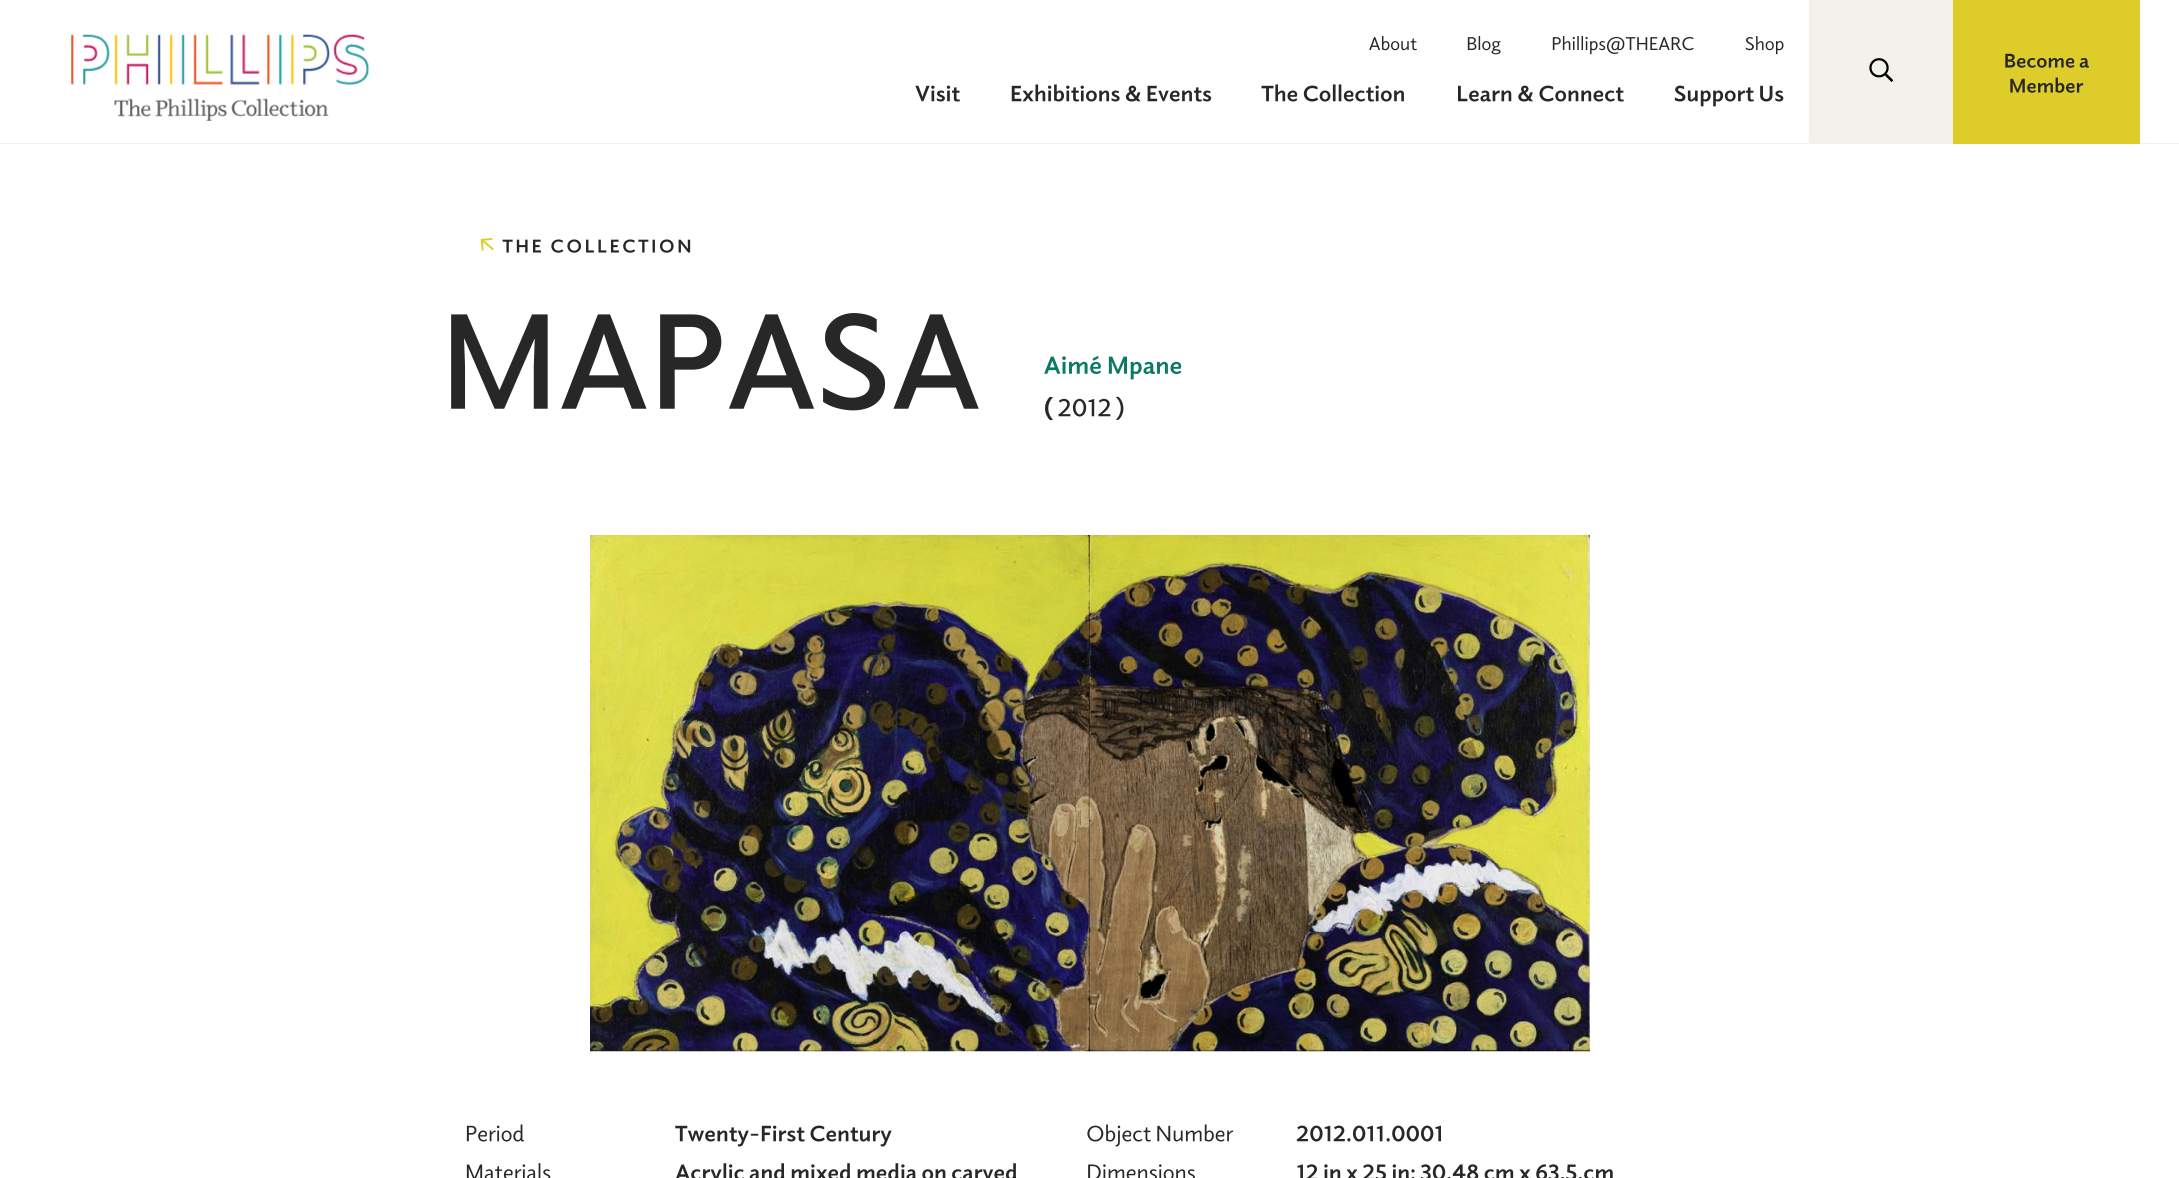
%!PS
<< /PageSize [2179 1178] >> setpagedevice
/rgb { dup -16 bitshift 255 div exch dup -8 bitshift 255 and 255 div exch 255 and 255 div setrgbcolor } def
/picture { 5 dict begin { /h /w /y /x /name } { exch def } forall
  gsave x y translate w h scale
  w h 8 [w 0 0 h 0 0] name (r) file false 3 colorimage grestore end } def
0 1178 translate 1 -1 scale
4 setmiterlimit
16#FFFFFF rgb
0 0 2179 1178 rectfill
16#F2F1EB rgb
0 143 2179 1 rectfill
(pic1.raw) 71 34 299 87 picture
(pic2.raw) 1369 36 48 15 picture
(pic3.raw) 1467 36 34 19 picture
(pic4.raw) 1552 36 142 19 picture
(pic5.raw) 1745 36 39 19 picture
1809 0 144 143 rectfill
(pic6.raw) 1869 58 25 24 picture
(pic7.raw) 915 85 45 17 picture
(pic8.raw) 1011 84 201 18 picture
(pic9.raw) 1261 84 143 18 picture
(pic10.raw) 1458 85 166 17 picture
(pic11.raw) 1674 85 110 22 picture
16#DECC2B rgb
1953 0 187 144 rectfill
(pic12.raw) 2005 53 84 15 picture
(pic13.raw) 2010 77 74 16 picture
(pic14.raw) 480 238 14 13 picture
(pic15.raw) 502 239 189 14 picture
(pic16.raw) 451 313 528 98 picture
(pic17.raw) 1044 356 138 24 picture
16#272727 rgb
1050 420 moveto 1043.5 413.5 1043.5 403 1050 397 curveto 1053 397 lineto 1046.5 403 1046.5 413.5 1053 420 curveto closepath fill
(pic18.raw) 1058 398 53 19 picture
(pic19.raw) 1115 396 9 24 picture
(pic20.raw) 590 535 1000 517 picture
(pic21.raw) 466 1124 58 18 picture
(pic22.raw) 675 1125 217 22 picture
(pic23.raw) 466 1163 85 15 picture
(pic24.raw) 676 1163 340 15 picture
(pic25.raw) 1087 1124 147 23 picture
(pic26.raw) 1296 1125 145 17 picture
(pic27.raw) 1088 1164 107 14 picture
(pic28.raw) 1297 1164 316 14 picture
showpage
